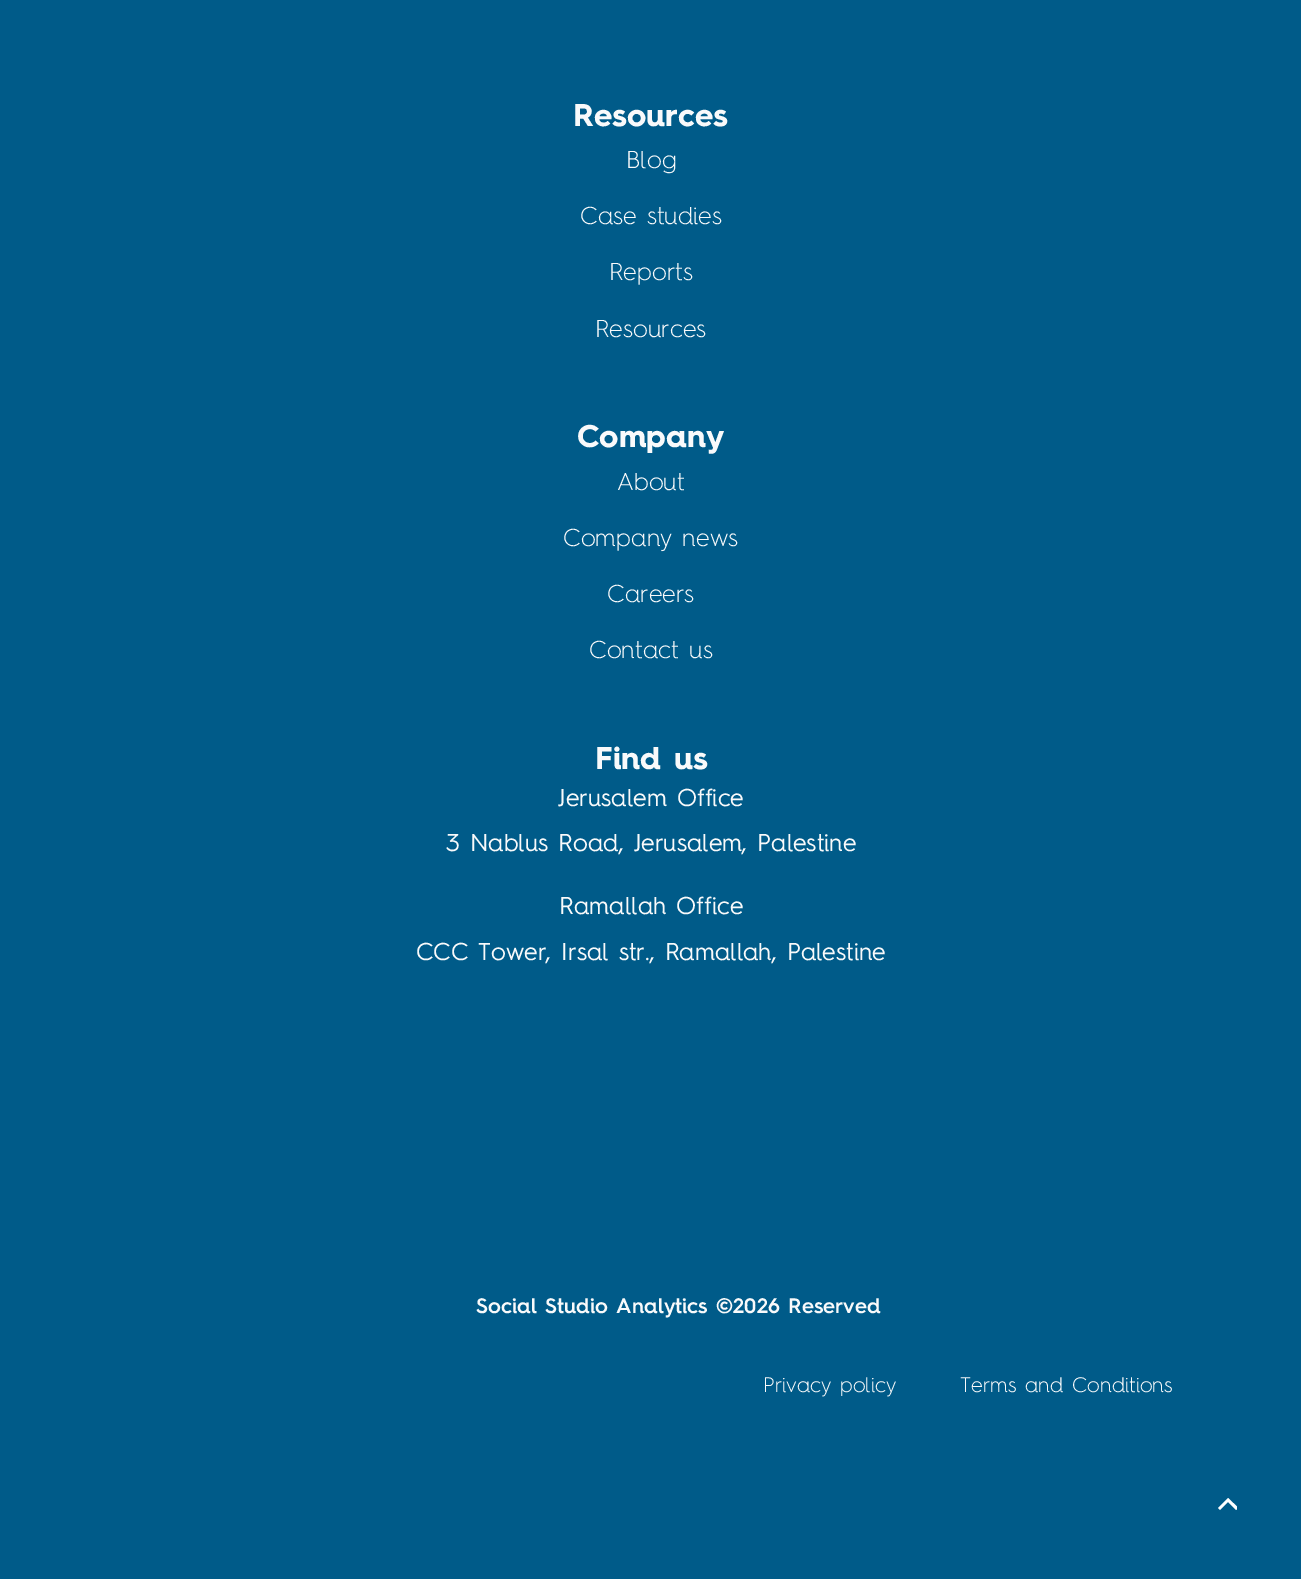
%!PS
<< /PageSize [1301 1579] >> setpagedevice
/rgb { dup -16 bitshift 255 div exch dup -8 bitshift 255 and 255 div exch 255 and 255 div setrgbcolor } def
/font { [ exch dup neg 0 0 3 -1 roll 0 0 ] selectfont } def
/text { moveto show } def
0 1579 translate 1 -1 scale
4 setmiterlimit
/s1 { /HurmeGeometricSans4-Bold 31.5 font 16#F9FAFB rgb } def
/s2 { /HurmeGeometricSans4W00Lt-Light 24.5 font 16#F9FAFB rgb } def
/s3 { /HurmeGeometricSans4-Regular 24.5 font 16#F9FAFB rgb } def
/s4 { /HurmeGeometricSans4-SemiBold 21 font 16#F9FAFB rgb } def
/s5 { /HurmeGeometricSans4W00Lt-Light 21 font 16#F9FAFB rgb } def
16#005B89 rgb
0 0 1301 1579 rectfill
s1
(Resources) 573 126 text
s2
(Blog) 626 168 text
(Case studies) 580 224 text
(Reports) 609 280 text
(Resources) 595 337 text
s1
(Company) 577 447 text
s2
(About) 617 490 text
(Company news) 563 546 text
(Careers) 607 602 text
(Contact us) 589 658 text
s1
(Find us) 595 769 text
s3
(Jerusalem Office) 558 806 text
(3 Nablus Road, Jerusalem, Palestine) 446 851 text
(Ramallah Office) 559 914 text
(CCC Tower, Irsal str., Ramallah, Palestine) 416 960 text
s4
(Social Studio Analytics ©2026 Reserved) 476 1313 text
s5
(Privacy policy) 763 1392 text
(Terms and Conditions) 960 1392 text
gsave
1216 1496 21 18 rectclip
16#FFFFFF rgb
1238.5 1508 moveto 1228 1498 lineto 1218 1508 lineto 1220 1510 lineto 1228 1502 lineto 1236 1510 lineto closepath fill
grestore
showpage
